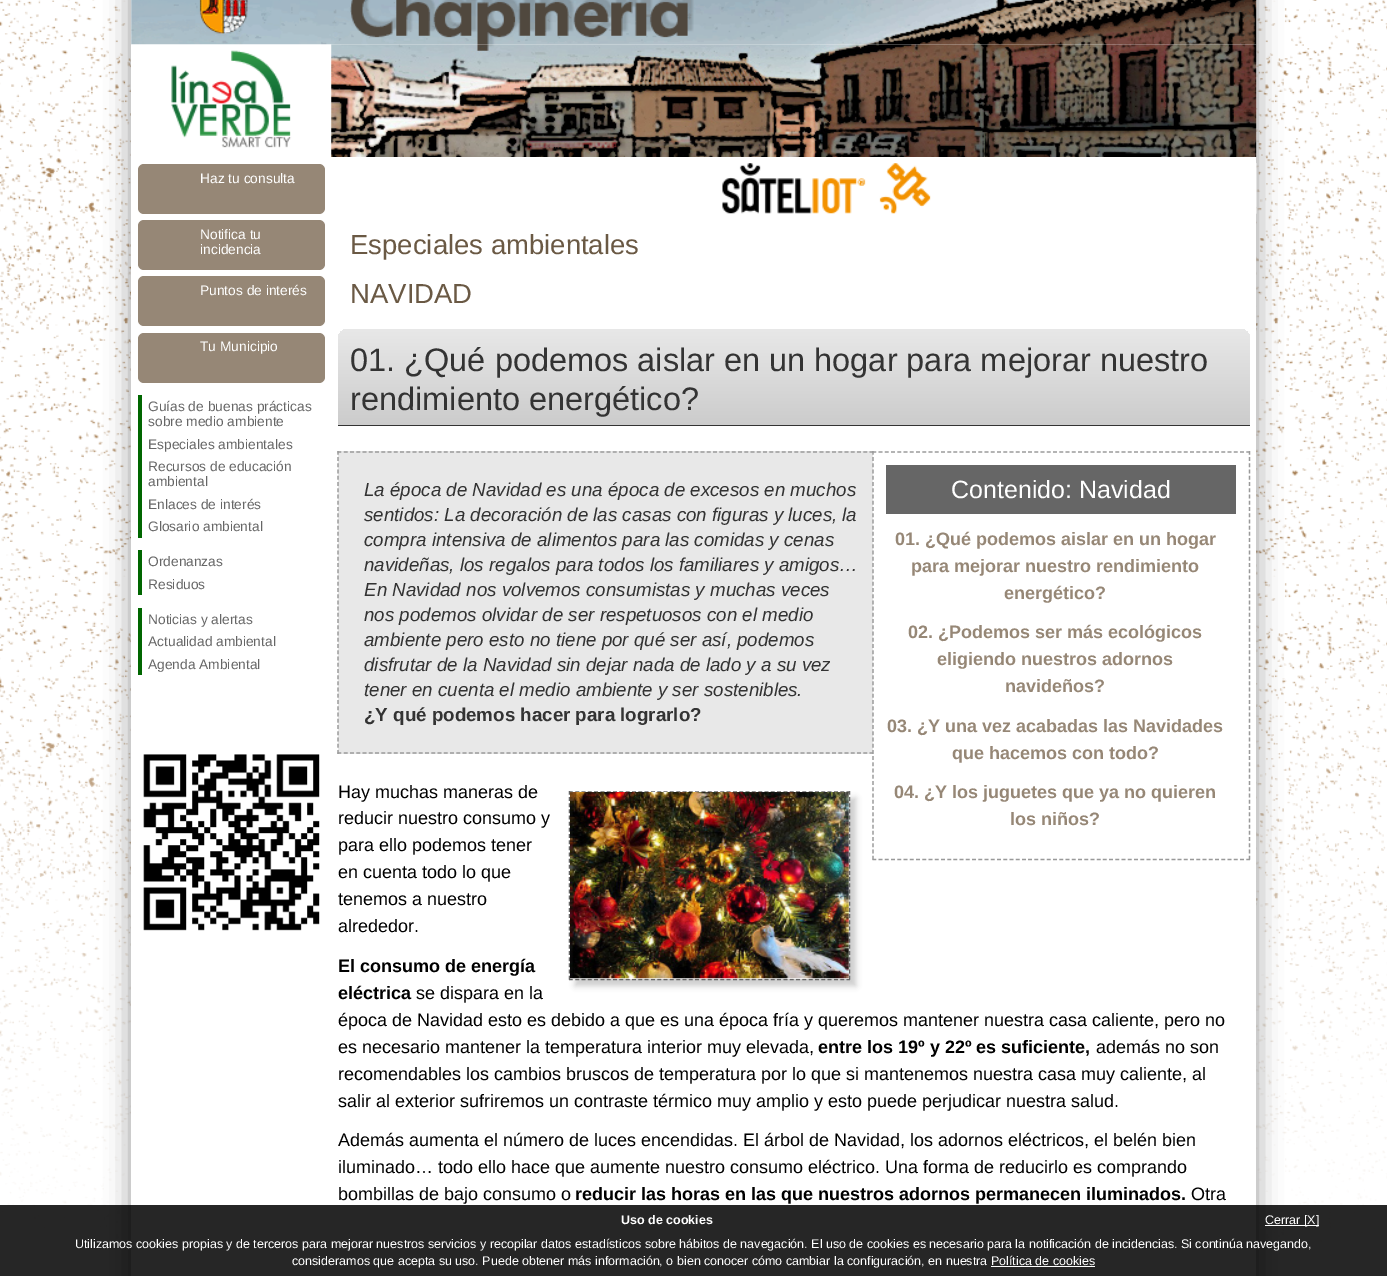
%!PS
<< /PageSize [1387 1276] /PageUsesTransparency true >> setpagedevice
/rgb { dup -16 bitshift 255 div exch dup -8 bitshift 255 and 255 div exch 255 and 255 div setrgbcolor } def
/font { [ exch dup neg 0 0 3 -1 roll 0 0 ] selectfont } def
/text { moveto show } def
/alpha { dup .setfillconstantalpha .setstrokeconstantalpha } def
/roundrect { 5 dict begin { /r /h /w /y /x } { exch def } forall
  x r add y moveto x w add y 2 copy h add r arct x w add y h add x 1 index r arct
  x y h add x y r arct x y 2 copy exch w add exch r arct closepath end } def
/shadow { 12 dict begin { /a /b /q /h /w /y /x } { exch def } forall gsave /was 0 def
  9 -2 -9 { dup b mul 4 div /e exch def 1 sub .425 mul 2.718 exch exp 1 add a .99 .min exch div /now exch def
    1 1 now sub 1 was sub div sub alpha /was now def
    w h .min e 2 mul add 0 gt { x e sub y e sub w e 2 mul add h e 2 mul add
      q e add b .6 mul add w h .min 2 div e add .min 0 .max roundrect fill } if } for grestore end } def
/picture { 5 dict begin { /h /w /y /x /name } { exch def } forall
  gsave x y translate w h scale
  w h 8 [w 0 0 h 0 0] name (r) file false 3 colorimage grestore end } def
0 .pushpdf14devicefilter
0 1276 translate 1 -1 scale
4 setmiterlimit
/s1 { /LiberationSans-Regular 13.75 font 16#FFFFFF rgb } def
/s2 { /LiberationSans-Regular 13.75 font 16#666666 rgb } def
/s3 { /LiberationSans-Regular 27.5 font 16#6A5944 rgb } def
/s4 { /LiberationSans-Regular 32.5 font 16#333333 rgb } def
/s5 { /LiberationSans-Italic 18.75 font 16#333333 rgb } def
/s6 { /LiberationSans-Bold 18.75 font 16#333333 rgb } def
/s7 { /LiberationSans-Regular 25 font 16#FFFFFF rgb } def
/s8 { /LiberationSans-Bold 18 font 16#968776 rgb } def
/s9 { /LiberationSans-Regular 18 font 16#000000 rgb } def
/s10 { /LiberationSans-Bold 18 font 16#000000 rgb } def
/s11 { /LiberationSans-Bold 12.5 font 16#FFFFFF rgb } def
/s12 { /LiberationSans-Regular 12.5 font 16#FFFFFF rgb } def
16#FFFFFF rgb
0 0 1387 1276 rectfill
(pic1.raw) 0 0 1387 1242 picture
16#000000 rgb
131 -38 1125 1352 0 12.5 0.4 shadow
16#FFFFFF rgb
131 0 1125 1276 rectfill
(pic2.raw) 131 0 1126 45 picture
(pic3.raw) 131 44 201 104 picture
(pic4.raw) 331 44 926 113 picture
(pic5.raw) 722 163 535 51 picture
16#968776 rgb
138 164 187 50 6 roundrect fill
s1
(Haz tu consulta) 200 183 text
16#968776 rgb
138 220 187 50 6 roundrect fill
s1
(Notifica tu) 200 239 text
(incidencia) 200 254 text
16#968776 rgb
138 276 187 50 6 roundrect fill
s1
(Puntos de interés) 200 295 text
16#968776 rgb
138 333 187 50 6 roundrect fill
s1
(Tu Municipio) 200 351 text
16#006600 rgb
138 395 4 143 rectfill
s2
(Guías de buenas prácticas) 148 411 text
(sobre medio ambiente) 148 426 text
(Especiales ambientales) 148 449 text
(Recursos de educación) 148 471 text
(ambiental) 148 486 text
(Enlaces de interés) 148 509 text
(Glosario ambiental) 148 531 text
16#006600 rgb
138 550 4 45 rectfill
s2
(Ordenanzas) 148 566 text
(Residuos) 148 589 text
16#006600 rgb
138 608 4 67 rectfill
s2
(Noticias y alertas) 148 624 text
(Actualidad ambiental) 148 646 text
(Agenda Ambiental) 148 669 text
(pic6.raw) 143 754 177 177 picture
s3
(Especiales ambientales) 350 254 text
(NAVIDAD) 350 303 text
gsave 348 329 moveto 1240 329 lineto 1245.5 329 1250 333.5 1250 339 curveto 1250 425 lineto 338 425 lineto 338 339 lineto 338 333.5 342.5 329 348 329 curveto closepath clip newpath
<< /ShadingType 2 /ColorSpace /DeviceRGB /Coords [794 329 794 425] /Extend [true true] /Function << /FunctionType 2 /Domain [0 1] /C0 [0.91 0.91 0.91] /C1 [0.8 0.8 0.8] /N 1 >> >> shfill grestore
16#333333 rgb
338 425 912 1 rectfill
s4
(01. ¿Qué podemos aislar en un hogar para mejorar nuestro) 350 371 text
(rendimiento energético?) 350 410 text
16#E8E8E8 rgb
338 451 535 303 rectfill
16#999999 rgb
1.2 setlinewidth
[3.75 2.51] 0 setdash
337.5 452 moveto 1200 452 lineto stroke
337.5 753 moveto 1200 753 lineto stroke
[3.75 2.48] 0 setdash
338 451 moveto 338 754 lineto stroke
s5
(La época de Navidad es una época de excesos en muchos) 364 496 text
(sentidos: La decoración de las casas con figuras y luces, la) 364 521 text
(compra intensiva de alimentos para las comidas y cenas) 364 546 text
(navideñas, los regalos para todos los familiares y amigos…) 364 571 text
(En Navidad nos volvemos consumistas y muchas veces) 364 596 text
(nos podemos olvidar de ser respetuosos con el medio) 364 621 text
(ambiente pero esto no tiene por qué ser así, podemos) 364 646 text
(disfrutar de la Navidad sin dejar nada de lado y a su vez) 364 671 text
(tener en cuenta el medio ambiente y ser sostenibles.) 364 696 text
s6
(¿Y qué podemos hacer para lograrlo?) 364 721 text
16#FFFFFF rgb
873 451 326 303 rectfill
16#999999 rgb
872.5 452 moveto 1250 452 lineto stroke
1249.5 451 moveto 1249.5 860 lineto stroke
872.5 859.5 moveto 1250 859.5 lineto stroke
873 451 moveto 873 860 lineto stroke
16#666666 rgb
886 465 350 49 rectfill
s7
(Contenido: Navidad) 951 498 text
s8
(01. ¿Qué podemos aislar en un hogar) 895 545 text
(para mejorar nuestro rendimiento) 911 572 text
(energético?) 1004 599 text
(02. ¿Podemos ser más ecológicos) 908 638 text
(eligiendo nuestros adornos) 937 665 text
(navideños?) 1005 692 text
(03. ¿Y una vez acabadas las Navidades) 887 732 text
(que hacemos con todo?) 952 759 text
(04. ¿Y los juguetes que ya no quieren) 894 798 text
(los niños?) 1010 825 text
s9
(Hay muchas maneras de) 338 798 text
(reducir nuestro consumo y) 338 824 text
(para ello podemos tener) 338 851 text
(en cuenta todo lo que) 338 878 text
(tenemos a nuestro) 338 905 text
(alrededor.) 338 932 text
16#CCCCCC rgb
575 798 281 188 0 3 1 shadow
16#666666 rgb
[3.75 2.56] 0 setdash
569 792 moveto 850 792 lineto stroke
[3.75 2.41] 0 setdash
849.5 791 moveto 849.5 980 lineto stroke
[3.75 2.56] 0 setdash
569 979.5 moveto 850 979.5 lineto stroke
[3.75 2.41] 0 setdash
569.5 791 moveto 569.5 980 lineto stroke
(pic7.raw) 570 792 279 187 picture
s10
(El consumo de energía) 338 972 text
(eléctrica) 338 999 text
s9
(se dispara en la) 416 999 text
(época de Navidad esto es debido a que es una época fría y queremos mantener nuestra casa caliente, pero no) 338 1026 text
(es necesario mantener la temperatura interior muy elevada,) 338 1053 text
s10
(entre los 19º y 22º es suficiente,) 818 1053 text
s9
(además no son) 1096 1053 text
(recomendables los cambios bruscos de temperatura por lo que si mantenemos nuestra casa muy caliente, al) 338 1080 text
(salir al exterior sufriremos un contraste térmico muy amplio y esto puede perjudicar nuestra salud.) 338 1107 text
(Además aumenta el número de luces encendidas. El árbol de Navidad, los adornos eléctricos, el belén bien) 338 1146 text
(iluminado… todo ello hace que aumente nuestro consumo eléctrico. Una forma de reducirlo es comprando) 338 1173 text
(bombillas de bajo consumo o) 338 1200 text
s10
(reducir las horas en las que nuestros adornos permanecen iluminados.) 575 1200 text
s9
(Otra) 1191 1200 text
0.85 alpha
0 1205 1387 71 rectfill
1 alpha
s11
(Uso de cookies) 621 1224 text
1265 1225 54 1 rectfill
s12
(Cerrar [X]) 1265 1224 text
(Utilizamos cookies propias y de terceros para mejorar nuestros servicios y recopilar datos estadísticos sobre hábitos de navegación. El uso de cookies es necesario para la notificación de incidencias. Si continúa navegando,) 75 1248 text
(consideramos que acepta su uso. Puede obtener más información, o bien conocer cómo cambiar la configuración, en nuestra Política de cookies) 292 1265 text
991 1266 104 1 rectfill
.poppdf14devicefilter showpage
